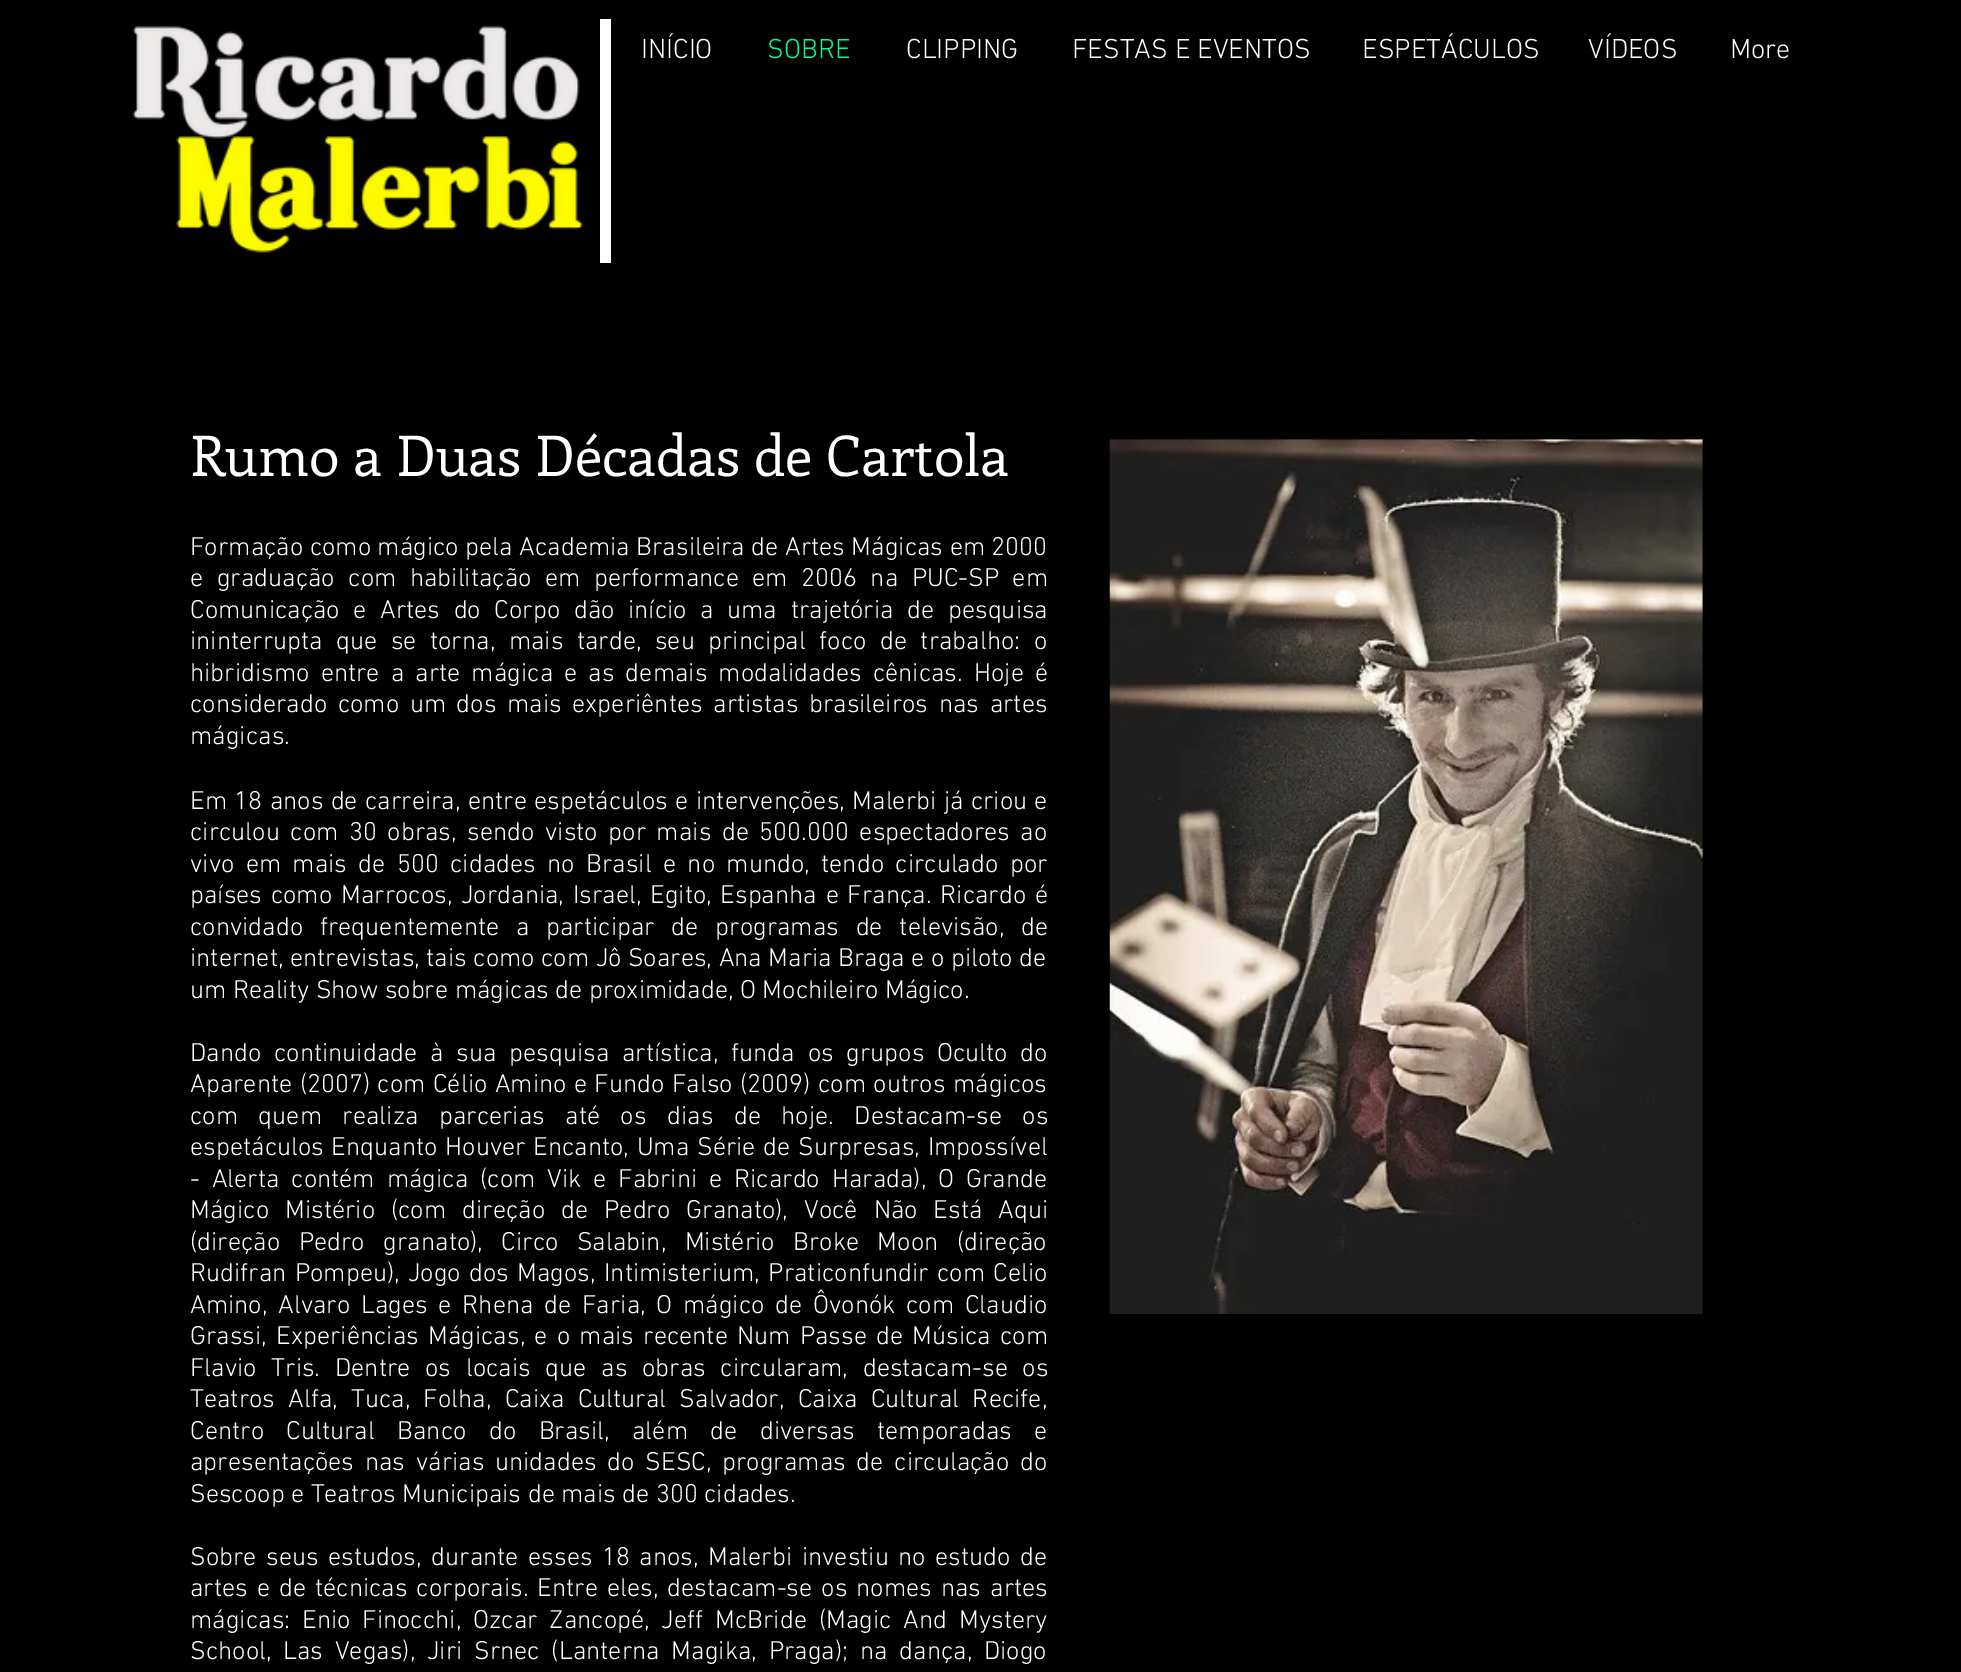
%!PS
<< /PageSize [1961 1672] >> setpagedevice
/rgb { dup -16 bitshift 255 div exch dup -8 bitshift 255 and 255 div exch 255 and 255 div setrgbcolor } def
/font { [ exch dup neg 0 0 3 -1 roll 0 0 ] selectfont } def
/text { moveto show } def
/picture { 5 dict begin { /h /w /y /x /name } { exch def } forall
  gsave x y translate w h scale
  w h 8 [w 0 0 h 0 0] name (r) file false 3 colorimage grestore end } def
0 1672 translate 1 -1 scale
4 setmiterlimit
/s1 { /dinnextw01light-Light 28 font 16#FFFFFF rgb } def
/s2 { /dinnextw01light-Light 28 font 16#07F791 rgb } def
/s3 { /Enriqueta-Regular 56 font 16#FFFFFF rgb } def
/s4 { /dinnextw01light-Light 26.25 font 16#FFFFFF rgb } def
16#000000 rgb
0 0 1961 1672 rectfill
(pic1.raw) 132 25 451 228 picture
16#FFFFFF rgb
600 19 11 244 rectfill
s1
(INÍCIO) 641 58 text
s2
(SOBRE) 767 58 text
s1
(CLIPPING) 906 58 text
(FESTAS E EVENTOS) 1072 58 text
(ESPETÁCULOS) 1362 58 text
(VÍDEOS) 1588 58 text
(More) 1730 58 text
s3
(Rumo a Duas Décadas de Cartola) 190 476 text
(pic2.raw) 1109 439 594 875 picture
s4
(Formação como mágico pela Academia Brasileira de Artes Mágicas em 2000) 190 555 text
190 586 moveto 7 0 32 (e graduação com habilitação em performance em 2006 na PUC-SP em) widthshow
190 618 moveto 7.1 0 32 (Comunicação e Artes do Corpo dão início a uma trajetória de pesquisa) widthshow
190 649 moveto 7 0 32 (ininterrupta que se torna, mais tarde, seu principal foco de trabalho: o) widthshow
190 681 moveto 4.6 0 32 (hibridismo entre a arte mágica e as demais modalidades cênicas. Hoje é) widthshow
190 712 moveto 4.1 0 32 (considerado como um dos mais experiêntes artistas brasileiros nas artes) widthshow
(mágicas.) 190 744 text
190 809 moveto 0.9 0 32 (Em 18 anos de carreira, entre espetáculos e intervenções, Malerbi já criou e) widthshow
190 840 moveto 4.1 0 32 (circulou com 30 obras, sendo visto por mais de 500.000 espectadores ao) widthshow
190 872 moveto 4.9 0 32 (vivo em mais de 500 cidades no Brasil e no mundo, tendo circulado por) widthshow
190 903 moveto 2.25 0 32 (países como Marrocos, Jordania, Israel, Egito, Espanha e França. Ricardo é) widthshow
190 935 moveto 10.25 0 32 (convidado frequentemente a participar de programas de televisão, de) widthshow
(internet, entrevistas, tais como com Jô Soares, Ana Maria Braga e o piloto de) 190 966 text
(um Reality Show sobre mágicas de proximidade, O Mochileiro Mágico.) 190 998 text
190 1061 moveto 6.25 0 32 (Dando continuidade à sua pesquisa artística, funda os grupos Oculto do) widthshow
190 1092 moveto 1 0 32 (Aparente \(2007\) com Célio Amino e Fundo Falso \(2009\) com outros mágicos) widthshow
190 1124 moveto 14 0 32 (com quem realiza parcerias até os dias de hoje. Destacam-se os) widthshow
190 1155 moveto 1.25 0 32 (espetáculos Enquanto Houver Encanto, Uma Série de Surpresas, Impossível) widthshow
190 1187 moveto 5.4 0 32 (- Alerta contém mágica \(com Vik e Fabrini e Ricardo Harada\), O Grande) widthshow
190 1218 moveto 9.5 0 32 (Mágico Mistério \(com direção de Pedro Granato\), Você Não Está Aqui) widthshow
190 1250 moveto 12 0 32 (\(direção Pedro granato\), Circo Salabin, Mistério Broke Moon \(direção) widthshow
190 1281 moveto 1.75 0 32 (Rudifran Pompeu\), Jogo dos Magos, Intimisterium, Praticonfundir com Celio) widthshow
190 1313 moveto 4.25 0 32 (Amino, Alvaro Lages e Rhena de Faria, O mágico de Ôvonók com Claudio) widthshow
190 1344 moveto 2.75 0 32 (Grassi, Experiências Mágicas, e o mais recente Num Passe de Música com) widthshow
190 1376 moveto 8.25 0 32 (Flavio Tris. Dentre os locais que as obras circularam, destacam-se os) widthshow
190 1407 moveto 6.75 0 32 (Teatros Alfa, Tuca, Folha, Caixa Cultural Salvador, Caixa Cultural Recife,) widthshow
190 1439 moveto 16 0 32 (Centro Cultural Banco do Brasil, além de diversas temporadas e) widthshow
190 1470 moveto 4.25 0 32 (apresentações nas várias unidades do SESC, programas de circulação do) widthshow
(Sescoop e Teatros Municipais de mais de 300 cidades.) 190 1502 text
190 1565 moveto 3.1 0 32 (Sobre seus estudos, durante esses 18 anos, Malerbi investiu no estudo de) widthshow
190 1596 moveto 2.5 0 32 (artes e de técnicas corporais. Entre eles, destacam-se os nomes nas artes) widthshow
190 1628 moveto 5.4 0 32 (mágicas: Enio Finocchi, Ozcar Zancopé, Jeff McBride \(Magic And Mystery) widthshow
190 1659 moveto 5.25 0 32 (School, Las Vegas\), Jiri Srnec \(Lanterna Magika, Praga\); na dança, Diogo) widthshow
showpage
